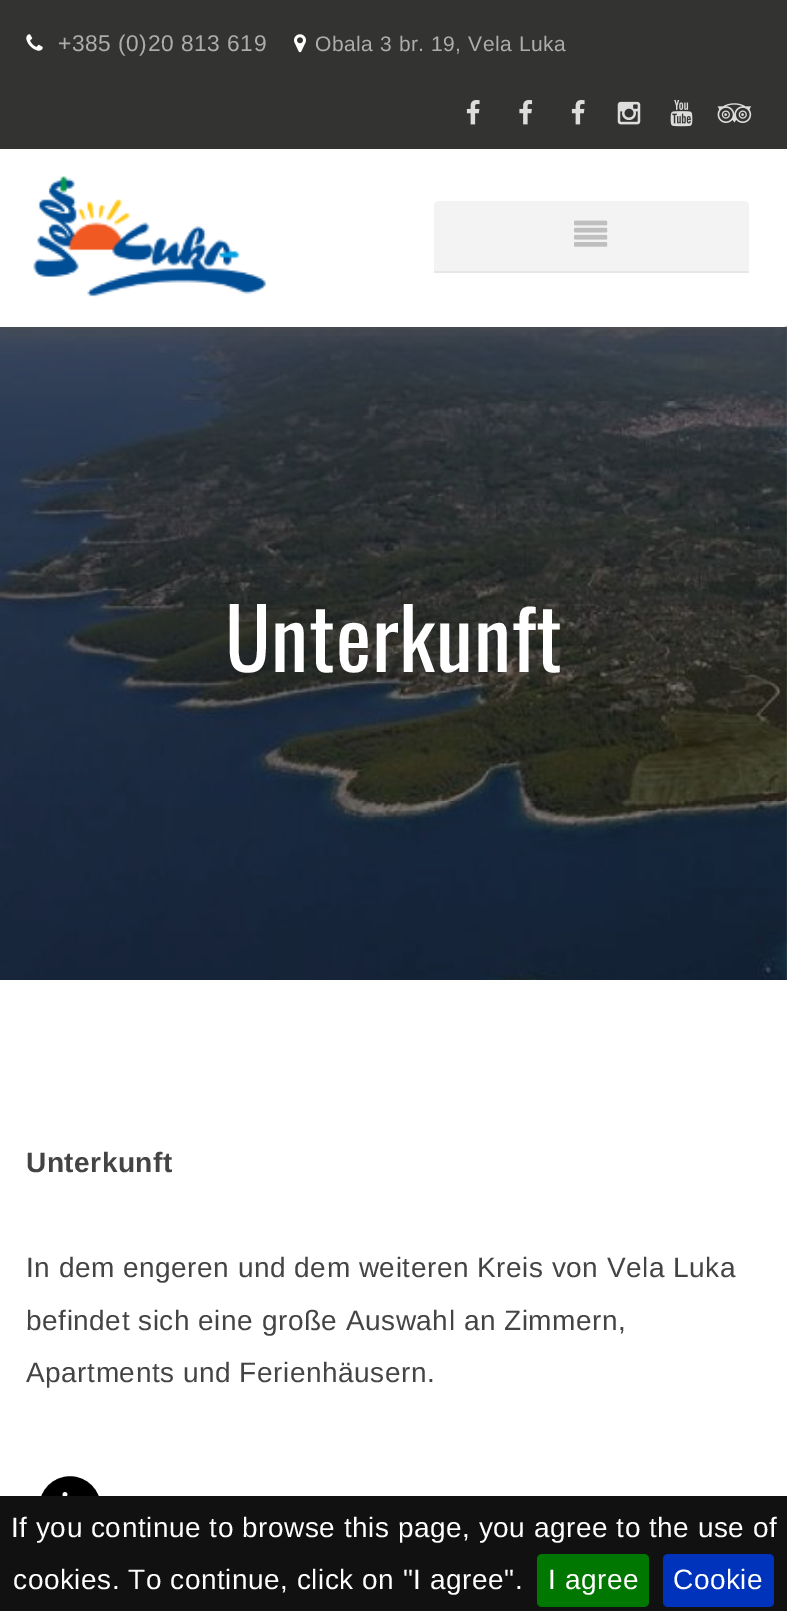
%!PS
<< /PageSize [787 1611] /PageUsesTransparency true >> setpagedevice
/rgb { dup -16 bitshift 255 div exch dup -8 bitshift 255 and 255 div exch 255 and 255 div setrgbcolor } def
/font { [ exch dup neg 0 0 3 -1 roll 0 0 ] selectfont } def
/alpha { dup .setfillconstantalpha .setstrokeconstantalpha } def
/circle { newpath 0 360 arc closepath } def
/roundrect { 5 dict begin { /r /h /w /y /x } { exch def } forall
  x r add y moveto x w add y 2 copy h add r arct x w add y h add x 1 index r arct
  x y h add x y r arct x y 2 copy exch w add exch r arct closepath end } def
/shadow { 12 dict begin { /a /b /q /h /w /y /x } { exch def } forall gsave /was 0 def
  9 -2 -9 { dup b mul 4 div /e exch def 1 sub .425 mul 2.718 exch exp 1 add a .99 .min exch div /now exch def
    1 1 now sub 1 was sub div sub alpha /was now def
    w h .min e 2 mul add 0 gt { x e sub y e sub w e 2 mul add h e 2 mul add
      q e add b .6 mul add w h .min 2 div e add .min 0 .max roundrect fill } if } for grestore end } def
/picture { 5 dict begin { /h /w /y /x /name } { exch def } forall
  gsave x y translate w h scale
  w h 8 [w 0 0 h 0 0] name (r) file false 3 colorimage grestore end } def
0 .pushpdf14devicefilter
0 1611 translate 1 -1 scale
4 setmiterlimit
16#FFFFFF rgb
0 0 787 1611 rectfill
(pic10.raw) 0 327 787 653 picture
gsave
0 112 moveto 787 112 lineto 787 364 lineto 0 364 lineto closepath 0 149 moveto 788 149 lineto 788 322 lineto 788 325 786 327 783 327 curveto 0 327 lineto closepath eoclip newpath
16#4F4F4F rgb
0 149 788 178 5 12 1 shadow
grestore
16#333332 rgb
0 0 787 149 rectfill
(pic1.raw) 26 34 17 17 picture
/Arimo-Regular 22.75 font
16#ADADAD rgb
58 51 moveto 0.53 0 (+385 \(0\)20 813 619) ashow
(pic2.raw) 294 34 12 19 picture
/Arimo-Regular 21 font
315 51 moveto 0.53 0 (Obala 3 br. 19, Vela Luka) ashow
(pic3.raw) 466 100 14 25 picture
(pic4.raw) 519 100 14 25 picture
(pic3.raw) 571 100 14 25 picture
(pic5.raw) 617 101 24 24 picture
(pic6.raw) 670 100 23 27 picture
(pic7.raw) 717 103 35 20 picture
0.95 alpha
16#FFFFFF rgb
0 149 moveto 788 149 lineto 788 322 lineto 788 325 786 327 783 327 curveto 0 327 lineto closepath fill
1 alpha
(pic8.raw) 33 176 233 121 picture
16#F3F3F3 rgb
439 201 moveto 744 201 lineto 747 201 749 203 749 206 curveto 749 273 lineto 434 273 lineto 434 206 lineto 434 203 436 201 439 201 curveto closepath fill
16#E7E7E7 rgb
434 271 315 2 rectfill
(pic9.raw) 574 220 34 27 picture
/Oswald-Regular 84 font
16#FFFFFF rgb
225 672 moveto 0.75 0 (Unterkunft) ashow
/Arimo-Bold 28 font
16#444444 rgb
26 1172 moveto 0.53 0 (Unterkunft) ashow
/Arimo-Regular 28 font
26 1277 moveto 0.53 0 (In dem engeren und dem weiteren Kreis von Vela Luka) ashow
26 1330 moveto 0.53 0 (befindet sich eine große Auswahl an Zimmern,) ashow
26 1382 moveto 0.53 0 (Apartments und Ferienhäusern.) ashow
16#000000 rgb
70 1507 33 circle gsave fill grestore
16#FFFFFF rgb
4 setlinewidth
stroke
(pic11.raw) 62 1492 6 4 picture
16#111111 rgb
0 1496 787 115 rectfill
16#FFFFFF rgb
11 1537 moveto 0.53 0 (If you continue to browse this page, you agree to the use of) ashow
13 1589 moveto 0.53 0 (cookies. To continue, click on "I agree".) ashow
16#007700 rgb
537 1554 112 53 5 roundrect fill
16#FFFFFF rgb
548 1589 moveto 0.53 0 (I agree) ashow
16#0033BB rgb
663 1554 111 53 5 roundrect fill
16#FFFFFF rgb
673 1589 moveto 0.53 0 (Cookie) ashow
.poppdf14devicefilter showpage
